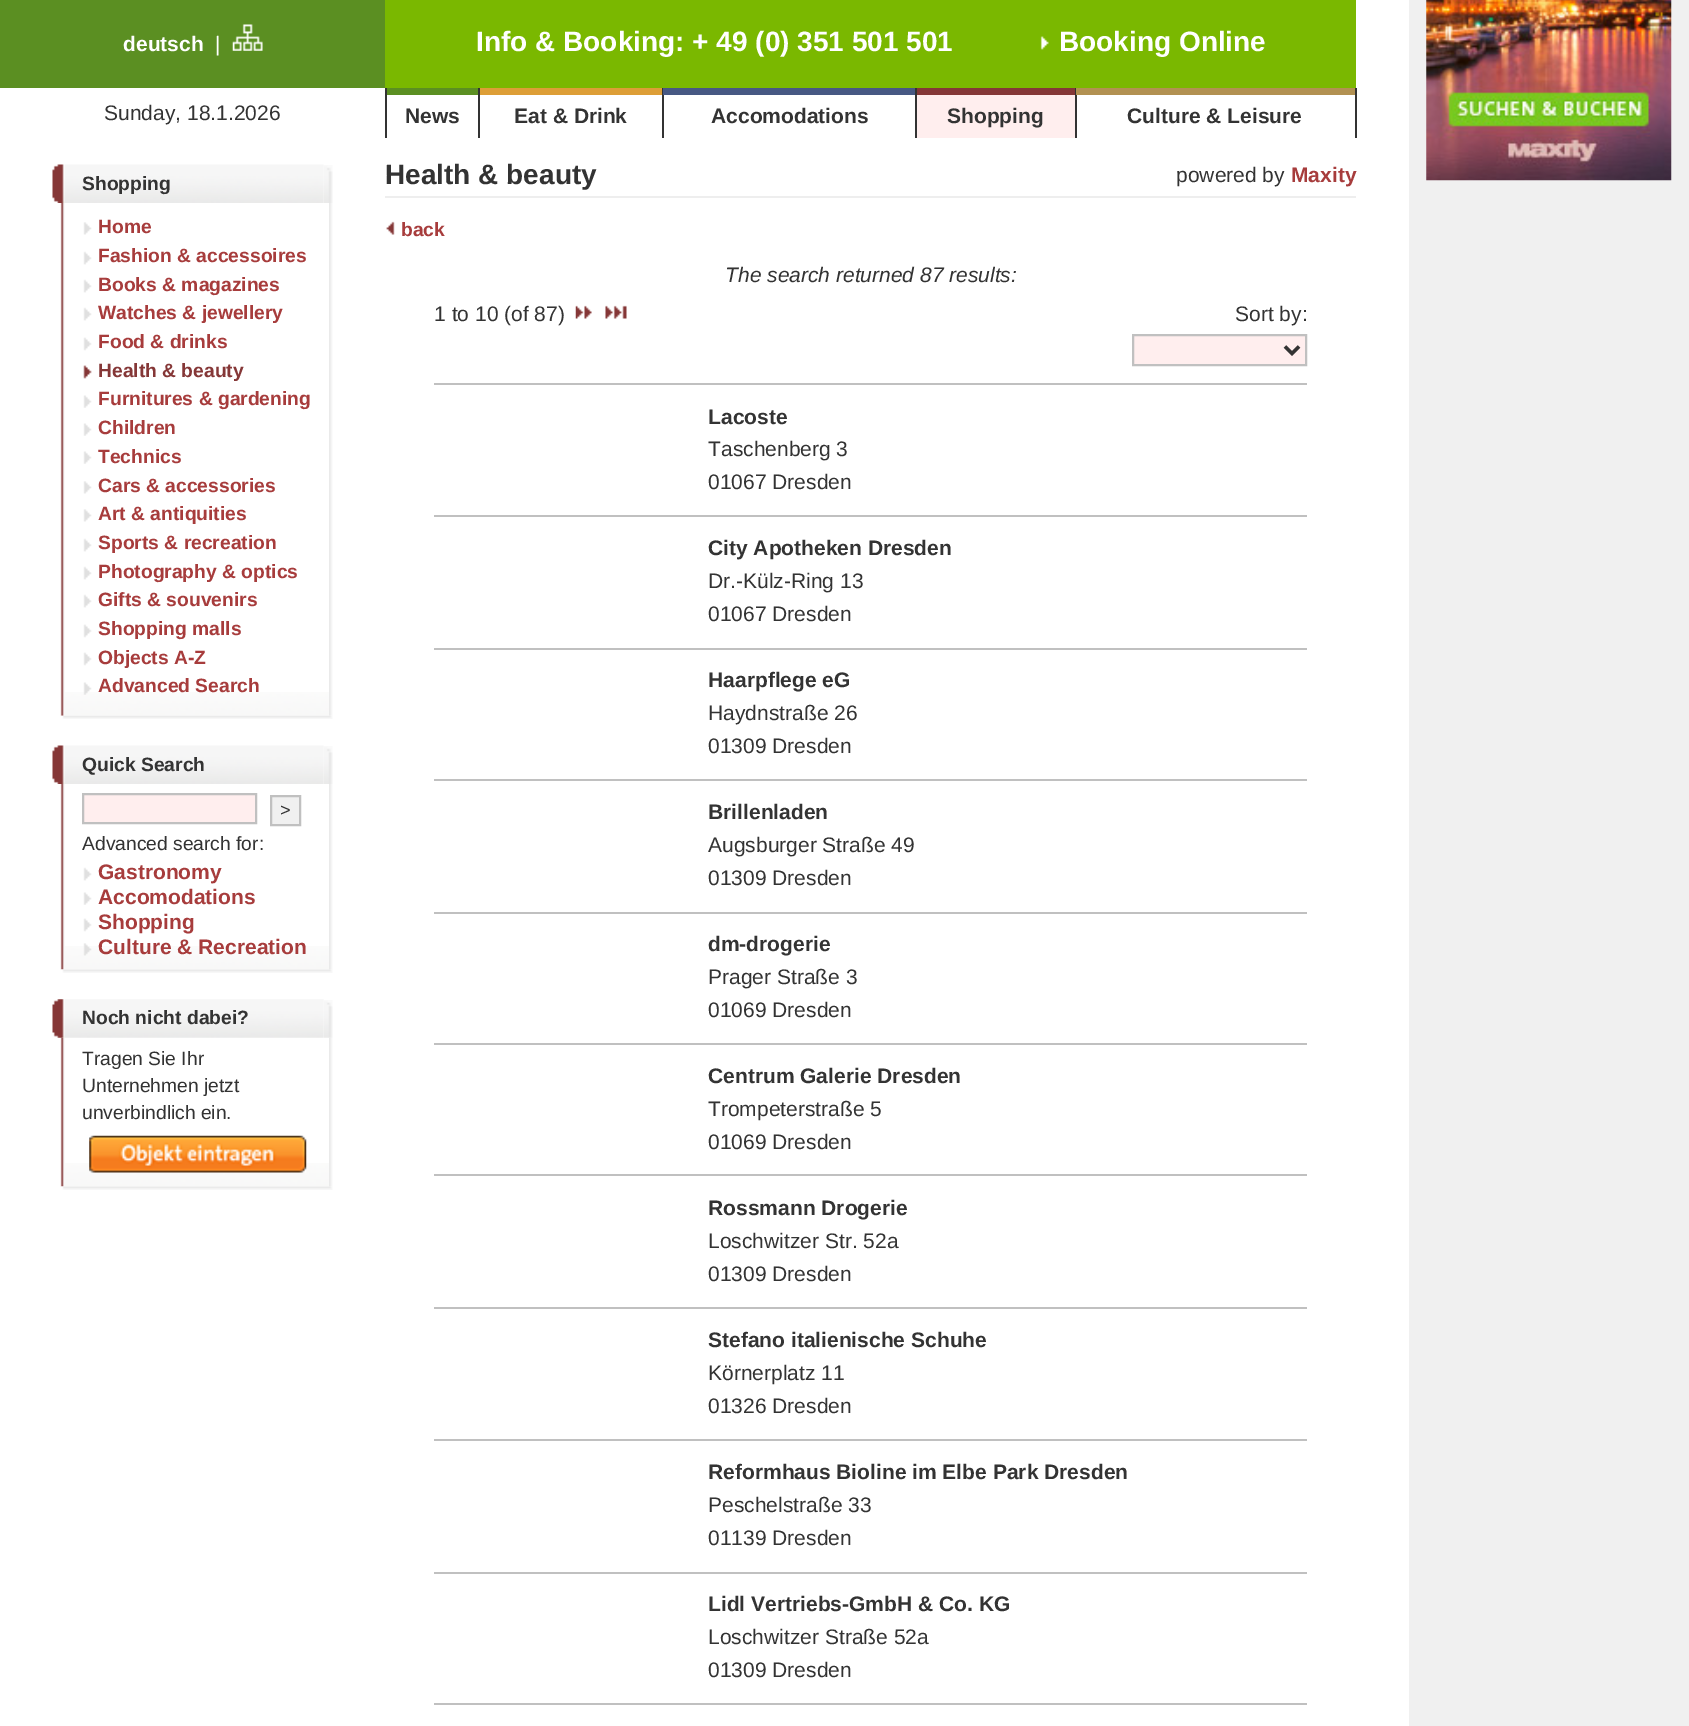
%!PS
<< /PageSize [1689 1726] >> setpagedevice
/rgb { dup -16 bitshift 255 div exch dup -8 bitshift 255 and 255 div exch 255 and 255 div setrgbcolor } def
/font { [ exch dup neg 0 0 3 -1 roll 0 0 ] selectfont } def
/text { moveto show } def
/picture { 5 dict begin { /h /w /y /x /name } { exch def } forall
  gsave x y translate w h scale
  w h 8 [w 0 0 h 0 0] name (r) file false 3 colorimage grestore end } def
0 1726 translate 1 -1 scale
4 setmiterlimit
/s1 { /LiberationSans-Bold 21 font 16#FFFFFF rgb } def
/s2 { /LiberationSans-Regular 21 font 16#FFFFFF rgb } def
/s3 { /LiberationSans-Bold 28 font 16#FFFFFF rgb } def
/s4 { /LiberationSans-Regular 21 font 16#333333 rgb } def
/s5 { /LiberationSans-Bold 21 font 16#333333 rgb } def
/s6 { /LiberationSans-Bold 19.25 font 16#333333 rgb } def
/s7 { /LiberationSans-Bold 19.25 font 16#A73C3C rgb } def
/s8 { /LiberationSans-Bold 19.25 font 16#853737 rgb } def
/s9 { /LiberationSans-Regular 18 font 16#333333 rgb } def
/s10 { /LiberationSans-Regular 19.25 font 16#333333 rgb } def
/s11 { /LiberationSans-Bold 21 font 16#A73C3C rgb } def
/s12 { /LiberationSans-Bold 28 font 16#333333 rgb } def
/s13 { /LiberationSans-Italic 21 font 16#333333 rgb } def
16#FFFFFF rgb
0 0 1689 1726 rectfill
16#5B8F22 rgb
0 0 385 88 rectfill
s1
(deutsch) 123 51 text
s2
(|) 215 51 text
(pic1.raw) 232 24 31 27 picture
16#7AB800 rgb
385 0 971 88 rectfill
s3
(Info & Booking: + 49 \(0\) 351 501 501) 476 51 text
(pic2.raw) 1040 36 9 14 picture
(Booking Online) 1059 51 text
s4
(Sunday, 18.1.2026) 104 120 text
385 88 2 50 rectfill
16#5B8F22 rgb
387 88 91 7 rectfill
s5
(News) 405 123 text
478 88 2 50 rectfill
16#DD9E37 rgb
480 88 182 7 rectfill
s5
(Eat & Drink) 514 123 text
662 88 2 50 rectfill
16#475883 rgb
663 88 252 7 rectfill
s5
(Accomodations) 711 123 text
915 88 2 50 rectfill
16#FFEEEE rgb
917 95 158 43 rectfill
16#853737 rgb
917 88 158 7 rectfill
s5
(Shopping) 947 123 text
1075 88 2 50 rectfill
16#B29152 rgb
1076 88 279 7 rectfill
s5
(Culture & Leisure) 1127 123 text
1355 88 2 50 rectfill
(pic4.raw) 64 164 260 39 picture
(pic3.raw) 52 164 13 39 picture
s6
(Shopping) 82 190 text
(pic5.raw) 324 165 9 38 picture
(pic6.raw) 60 203 5 513 picture
(pic7.raw) 65 692 264 24 picture
(pic8.raw) 83 222 9 13 picture
s7
(Home) 98 233 text
(pic9.raw) 83 251 9 14 picture
(Fashion & accessoires) 98 262 text
(pic9.raw) 83 279 9 14 picture
(Books & magazines) 98 291 text
(pic9.raw) 83 307 9 14 picture
(Watches & jewellery) 98 319 text
(pic10.raw) 83 337 9 14 picture
(Food & drinks) 98 348 text
(pic11.raw) 83 365 9 14 picture
s8
(Health & beauty) 98 377 text
(pic12.raw) 83 395 9 13 picture
s7
(Furnitures & gardening) 98 405 text
(pic12.raw) 83 423 9 13 picture
(Children) 98 434 text
(pic12.raw) 83 451 9 13 picture
(Technics) 98 463 text
(pic8.raw) 83 481 9 13 picture
(Cars & accessories) 98 492 text
(pic8.raw) 83 509 9 13 picture
(Art & antiquities) 98 520 text
(pic9.raw) 83 538 9 14 picture
(Sports & recreation) 98 549 text
(pic9.raw) 83 566 9 14 picture
(Photography & optics) 98 578 text
(pic9.raw) 83 594 9 14 picture
(Gifts & souvenirs) 98 606 text
(pic10.raw) 83 624 9 14 picture
(Shopping malls) 98 635 text
(pic10.raw) 83 652 9 14 picture
(Objects A-Z) 98 664 text
(pic13.raw) 83 682 9 13 picture
(Advanced Search) 98 692 text
(pic14.raw) 329 203 4 513 picture
(pic15.raw) 61 715 272 4 picture
(pic4.raw) 64 745 260 39 picture
(pic3.raw) 52 745 13 39 picture
s6
(Quick Search) 82 771 text
(pic5.raw) 324 746 9 38 picture
(pic16.raw) 60 784 5 186 picture
(pic17.raw) 65 946 264 24 picture
16#FFEEEE rgb
83 794 moveto 256 794 lineto 256 823 lineto 83 823 lineto closepath gsave fill grestore
16#C0C0C0 rgb
2 setlinewidth
stroke
16#F0F0F0 rgb
271 796 moveto 300 796 lineto 300 825 lineto 271 825 lineto closepath gsave fill grestore
16#C0C0C0 rgb
stroke
s9
(>) 280 816 text
s10
(Advanced search for:) 82 850 text
(pic9.raw) 83 867 9 14 picture
s11
(Gastronomy) 98 879 text
(pic12.raw) 83 892 9 13 picture
(Accomodations) 98 904 text
(pic10.raw) 83 918 9 14 picture
(Shopping) 98 929 text
(pic18.raw) 83 943 9 13 picture
(Culture & Recreation) 98 954 text
(pic19.raw) 329 784 4 186 picture
(pic20.raw) 61 969 272 4 picture
(pic22.raw) 64 999 260 39 picture
(pic24.raw) 60 1037 5 150 picture
(pic21.raw) 52 999 13 39 picture
s6
(Noch nicht dabei?) 82 1024 text
(pic26.raw) 329 1037 4 150 picture
(pic23.raw) 324 1000 9 38 picture
(pic17.raw) 65 1163 264 24 picture
s10
(Tragen Sie Ihr) 82 1065 text
(Unternehmen jetzt) 82 1092 text
(unverbindlich ein.) 82 1119 text
(pic25.raw) 89 1135 218 38 picture
(pic20.raw) 61 1186 272 4 picture
16#EEEEEE rgb
385 196 971 2 rectfill
s12
(Health & beauty) 385 184 text
s4
(powered by) 1176 182 text
s11
(Maxity) 1291 182 text
(pic27.raw) 386 221 9 14 picture
s7
(back) 401 236 text
s13
(The search returned 87 results:) 725 282 text
s4
(1 to 10 \(of 87\)) 434 321 text
(pic28.raw) 575 305 17 14 picture
(pic29.raw) 605 305 22 14 picture
(Sort by:) 1235 321 text
16#FFEEEE rgb
1133 335 moveto 1306 335 lineto 1306 365 lineto 1133 365 lineto closepath gsave fill grestore
16#C0C0C0 rgb
stroke
16#333333 rgb
3.5 setlinewidth
1285 346.5 moveto 1292 353.5 lineto 1299 346.5 lineto stroke
16#C0C0C0 rgb
434 383 873 2 rectfill
s5
(Lacoste) 708 424 text
s4
(Taschenberg 3) 708 456 text
(01067 Dresden) 708 489 text
16#C0C0C0 rgb
434 515 873 2 rectfill
s5
(City Apotheken Dresden) 708 555 text
s4
(Dr.-Külz-Ring 13) 708 588 text
(01067 Dresden) 708 621 text
16#C0C0C0 rgb
434 648 873 2 rectfill
s5
(Haarpflege eG) 708 687 text
s4
(Haydnstraße 26) 708 720 text
(01309 Dresden) 708 753 text
16#C0C0C0 rgb
434 779 873 2 rectfill
s5
(Brillenladen) 708 819 text
s4
(Augsburger Straße 49) 708 852 text
(01309 Dresden) 708 885 text
16#C0C0C0 rgb
434 912 873 2 rectfill
s5
(dm-drogerie) 708 951 text
s4
(Prager Straße 3) 708 984 text
(01069 Dresden) 708 1017 text
16#C0C0C0 rgb
434 1043 873 2 rectfill
s5
(Centrum Galerie Dresden) 708 1083 text
s4
(Trompeterstraße 5) 708 1116 text
(01069 Dresden) 708 1149 text
16#C0C0C0 rgb
434 1174 873 2 rectfill
s5
(Rossmann Drogerie) 708 1215 text
s4
(Loschwitzer Str. 52a) 708 1248 text
(01309 Dresden) 708 1281 text
16#C0C0C0 rgb
434 1307 873 2 rectfill
s5
(Stefano italienische Schuhe) 708 1347 text
s4
(Körnerplatz 11) 708 1380 text
(01326 Dresden) 708 1413 text
16#C0C0C0 rgb
434 1439 873 2 rectfill
s5
(Reformhaus Bioline im Elbe Park Dresden) 708 1479 text
s4
(Peschelstraße 33) 708 1512 text
(01139 Dresden) 708 1545 text
16#C0C0C0 rgb
434 1572 873 2 rectfill
s5
(Lidl Vertriebs-GmbH & Co. KG) 708 1611 text
s4
(Loschwitzer Straße 52a) 708 1644 text
(01309 Dresden) 708 1677 text
16#C0C0C0 rgb
434 1703 873 2 rectfill
16#F0F0F0 rgb
1409 0 280 1726 rectfill
(pic30.raw) 1426 0 246 181 picture
showpage
